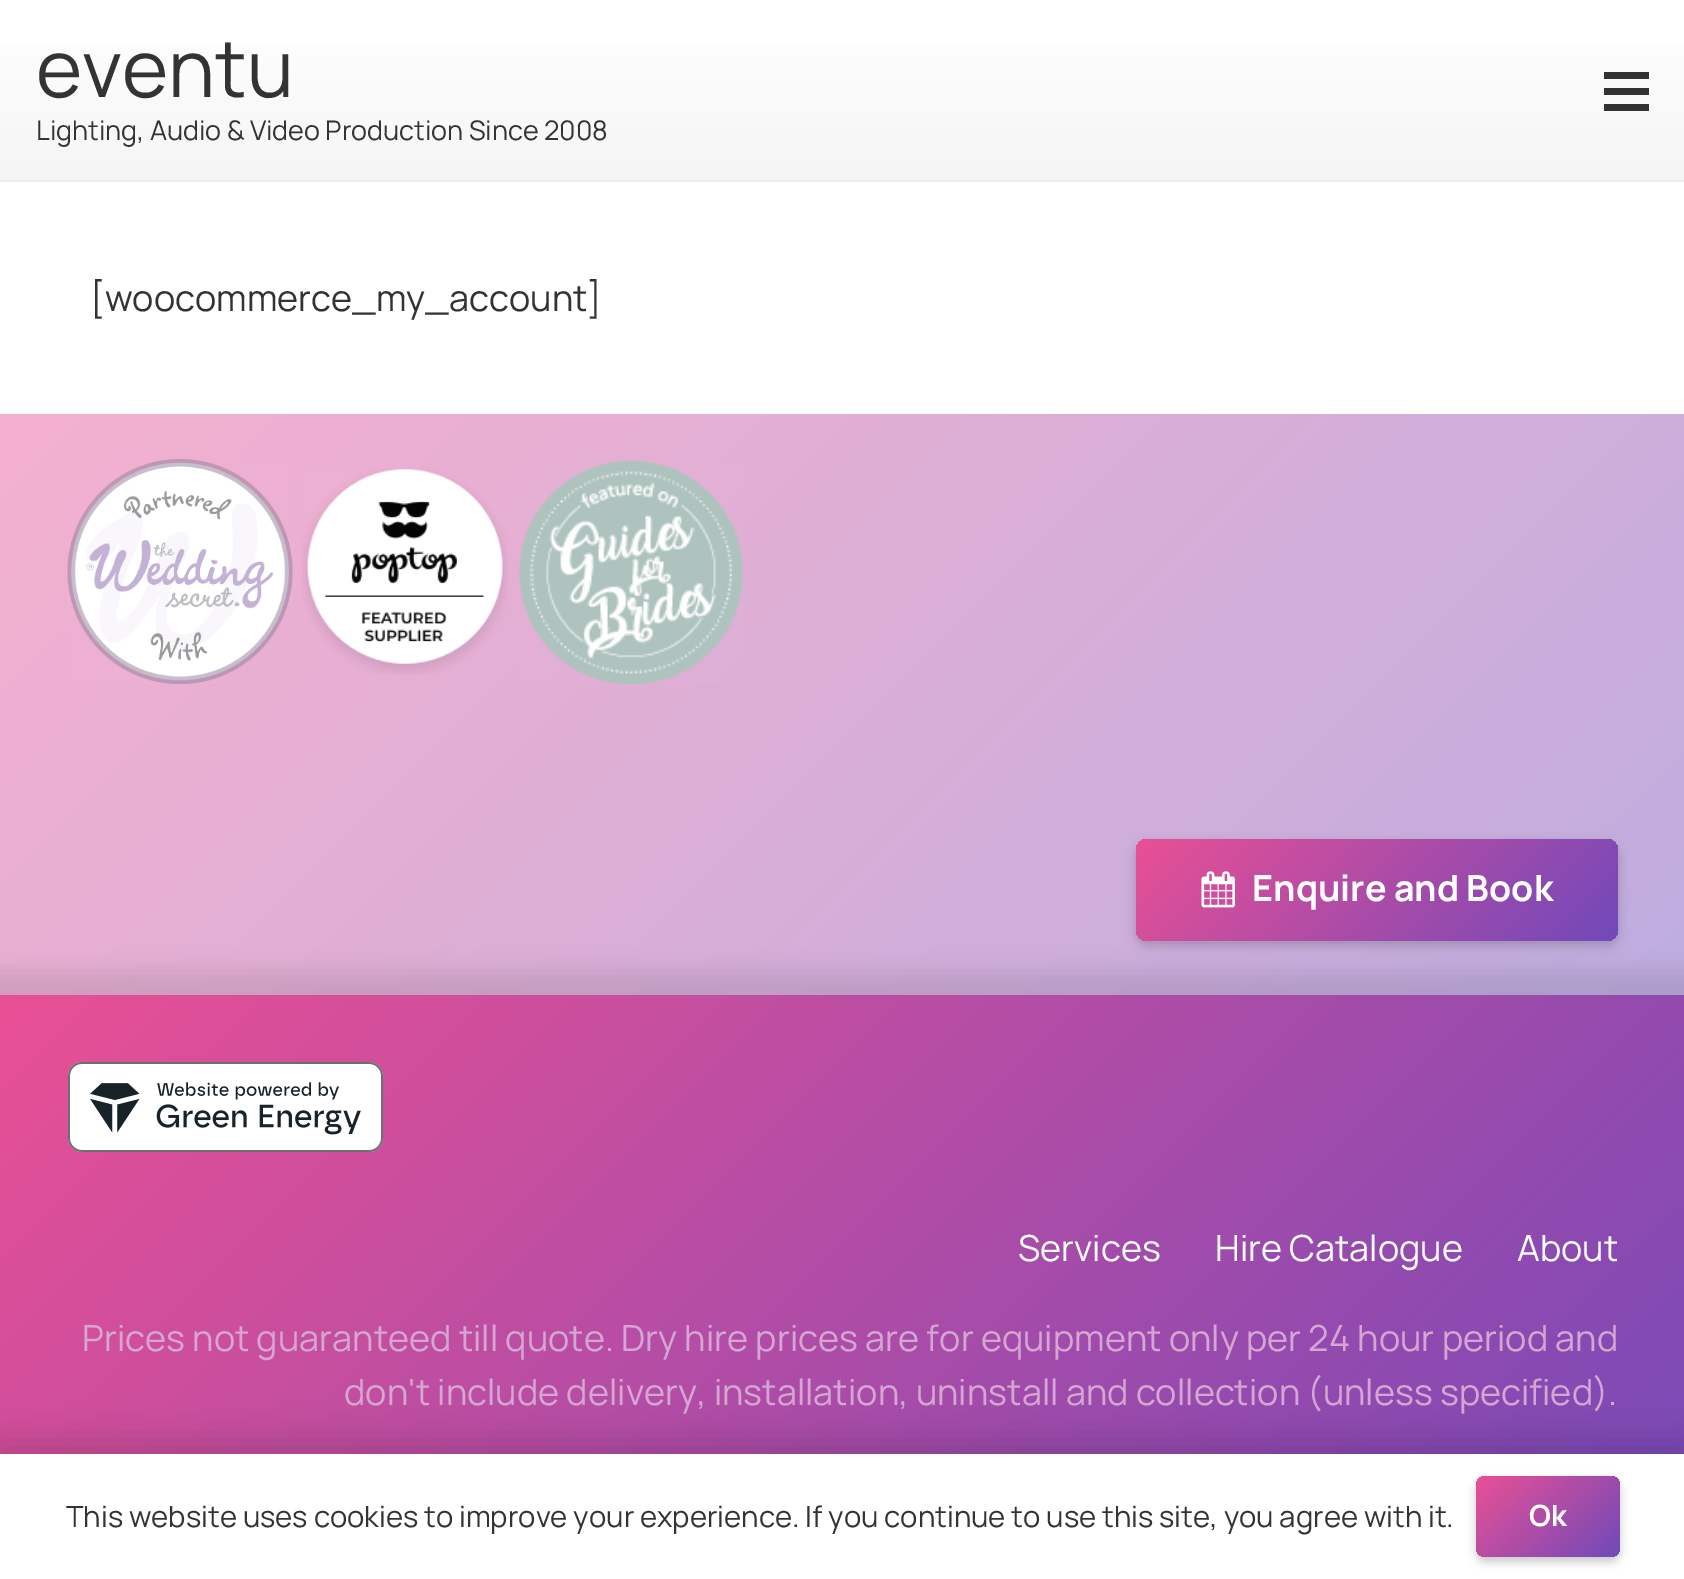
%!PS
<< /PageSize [1684 1579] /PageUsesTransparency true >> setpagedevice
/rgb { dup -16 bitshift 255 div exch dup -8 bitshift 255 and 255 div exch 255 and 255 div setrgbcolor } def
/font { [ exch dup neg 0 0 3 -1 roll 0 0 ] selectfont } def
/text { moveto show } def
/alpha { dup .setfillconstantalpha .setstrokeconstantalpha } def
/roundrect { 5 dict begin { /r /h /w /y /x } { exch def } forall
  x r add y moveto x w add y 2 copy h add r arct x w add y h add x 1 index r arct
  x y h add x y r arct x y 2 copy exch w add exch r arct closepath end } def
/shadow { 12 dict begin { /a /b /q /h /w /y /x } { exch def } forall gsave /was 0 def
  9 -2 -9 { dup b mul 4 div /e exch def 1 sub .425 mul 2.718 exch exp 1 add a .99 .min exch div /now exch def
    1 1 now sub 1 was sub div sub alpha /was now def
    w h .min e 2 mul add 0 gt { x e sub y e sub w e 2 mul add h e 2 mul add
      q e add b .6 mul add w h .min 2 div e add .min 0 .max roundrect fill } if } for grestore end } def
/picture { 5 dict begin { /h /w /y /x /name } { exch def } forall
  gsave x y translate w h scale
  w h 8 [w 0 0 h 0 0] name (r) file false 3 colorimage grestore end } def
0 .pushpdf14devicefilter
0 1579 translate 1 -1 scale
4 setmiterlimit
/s1 { /Manrope-Regular 79 font 16#333333 rgb } def
/s2 { /Manrope-Regular 27 font 16#333333 rgb } def
/s3 { /Manrope-Regular 36 font 16#333333 rgb } def
/s4 { /Manrope-Bold 36 font 16#FFFFFF rgb } def
/s5 { /Manrope-Regular 36 font 16#FFFFFF rgb } def
/s6 { /Manrope-Regular 36 font 16#D6A6D3 rgb } def
/s7 { /Manrope-Regular 29.25 font 16#333333 rgb } def
/s8 { /Manrope-Bold 29.25 font 16#FFFFFF rgb } def
16#FFFFFF rgb
0 0 1684 1579 rectfill
16#EBEBEB rgb
0 180 1684 2 rectfill
gsave 0 45 moveto 1684 45 lineto 1684 180 lineto 0 180 lineto closepath clip newpath
<< /ShadingType 2 /ColorSpace /DeviceRGB /Coords [843 180 843 0] /Extend [true true] /Function << /FunctionType 2 /Domain [0 1] /C0 [0.961 0.961 0.961] /C1 [1 1 1] /N 1 >> >> shfill grestore
s1
(eventu) 36 97 text
s2
(Lighting, Audio & Video Production Since 2008) 36 140 text
1604 88 45 7 rectfill
1604 72 45 7 rectfill
1604 104 45 7 rectfill
s3
([woocommerce_my_account]) 90 311 text
gsave 0 414 moveto 1684 414 lineto 1684 995 lineto 0 995 lineto closepath clip newpath
<< /ShadingType 2 /ColorSpace /DeviceRGB /Coords [276 138 1409 1271] /Extend [true true] /Function << /FunctionType 2 /Domain [0 1] /C0 [0.961 0.69 0.812] /C1 [0.749 0.678 0.878] /N 1 >> >> shfill grestore
(pic1.raw) 67 459 226 225 picture
(pic2.raw) 302 468 206 207 picture
(pic3.raw) 519 460 224 224 picture
16#000000 rgb
1136 844 482 101 11 5.5 0.2 shadow
gsave 1136 839 482 102 11 roundrect clip newpath
<< /ShadingType 2 /ColorSpace /DeviceRGB /Coords [1231 744 1523 1036] /Extend [true true] /Function << /FunctionType 2 /Domain [0 1] /C0 [0.914 0.314 0.584] /C1 [0.439 0.286 0.729] /N 1 >> >> shfill grestore
(pic4.raw) 1201 871 34 37 picture
s4
(Enquire and Book) 1252 901 text
16#000000 rgb
-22 972 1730 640 0 11 0.1 shadow
gsave 0 995 moveto 1684 995 lineto 1684 1454 lineto 0 1454 lineto closepath clip newpath
<< /ShadingType 2 /ColorSpace /DeviceRGB /Coords [248 747 1438 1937] /Extend [true true] /Function << /FunctionType 2 /Domain [0 1] /C0 [0.914 0.314 0.584] /C1 [0.439 0.286 0.729] /N 1 >> >> shfill grestore
(pic5.raw) 68 1062 315 90 picture
s5
(Services) 1018 1261 text
(Hire Catalogue) 1215 1261 text
(About) 1517 1261 text
s6
(Prices not guaranteed till quote. Dry hire prices are for equipment only per 24 hour period and) 82 1351 text
(don't include delivery, installation, uninstall and collection \(unless specified\).) 344 1405 text
16#000000 rgb
0 1442 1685 126 0 17 0.15 shadow
16#FFFFFF rgb
0 1454 1684 125 rectfill
s7
(This website uses cookies to improve your experience. If you continue to use this site, you agree with it.) 66 1527 text
16#000000 rgb
1476 1481 144 81 9 4.5 0.2 shadow
gsave 1476 1476 144 81 9 roundrect clip newpath
<< /ShadingType 2 /ColorSpace /DeviceRGB /Coords [1492 1460 1604 1573] /Extend [true true] /Function << /FunctionType 2 /Domain [0 1] /C0 [0.914 0.314 0.584] /C1 [0.439 0.286 0.729] /N 1 >> >> shfill grestore
s8
(Ok) 1529 1526 text
.poppdf14devicefilter showpage
